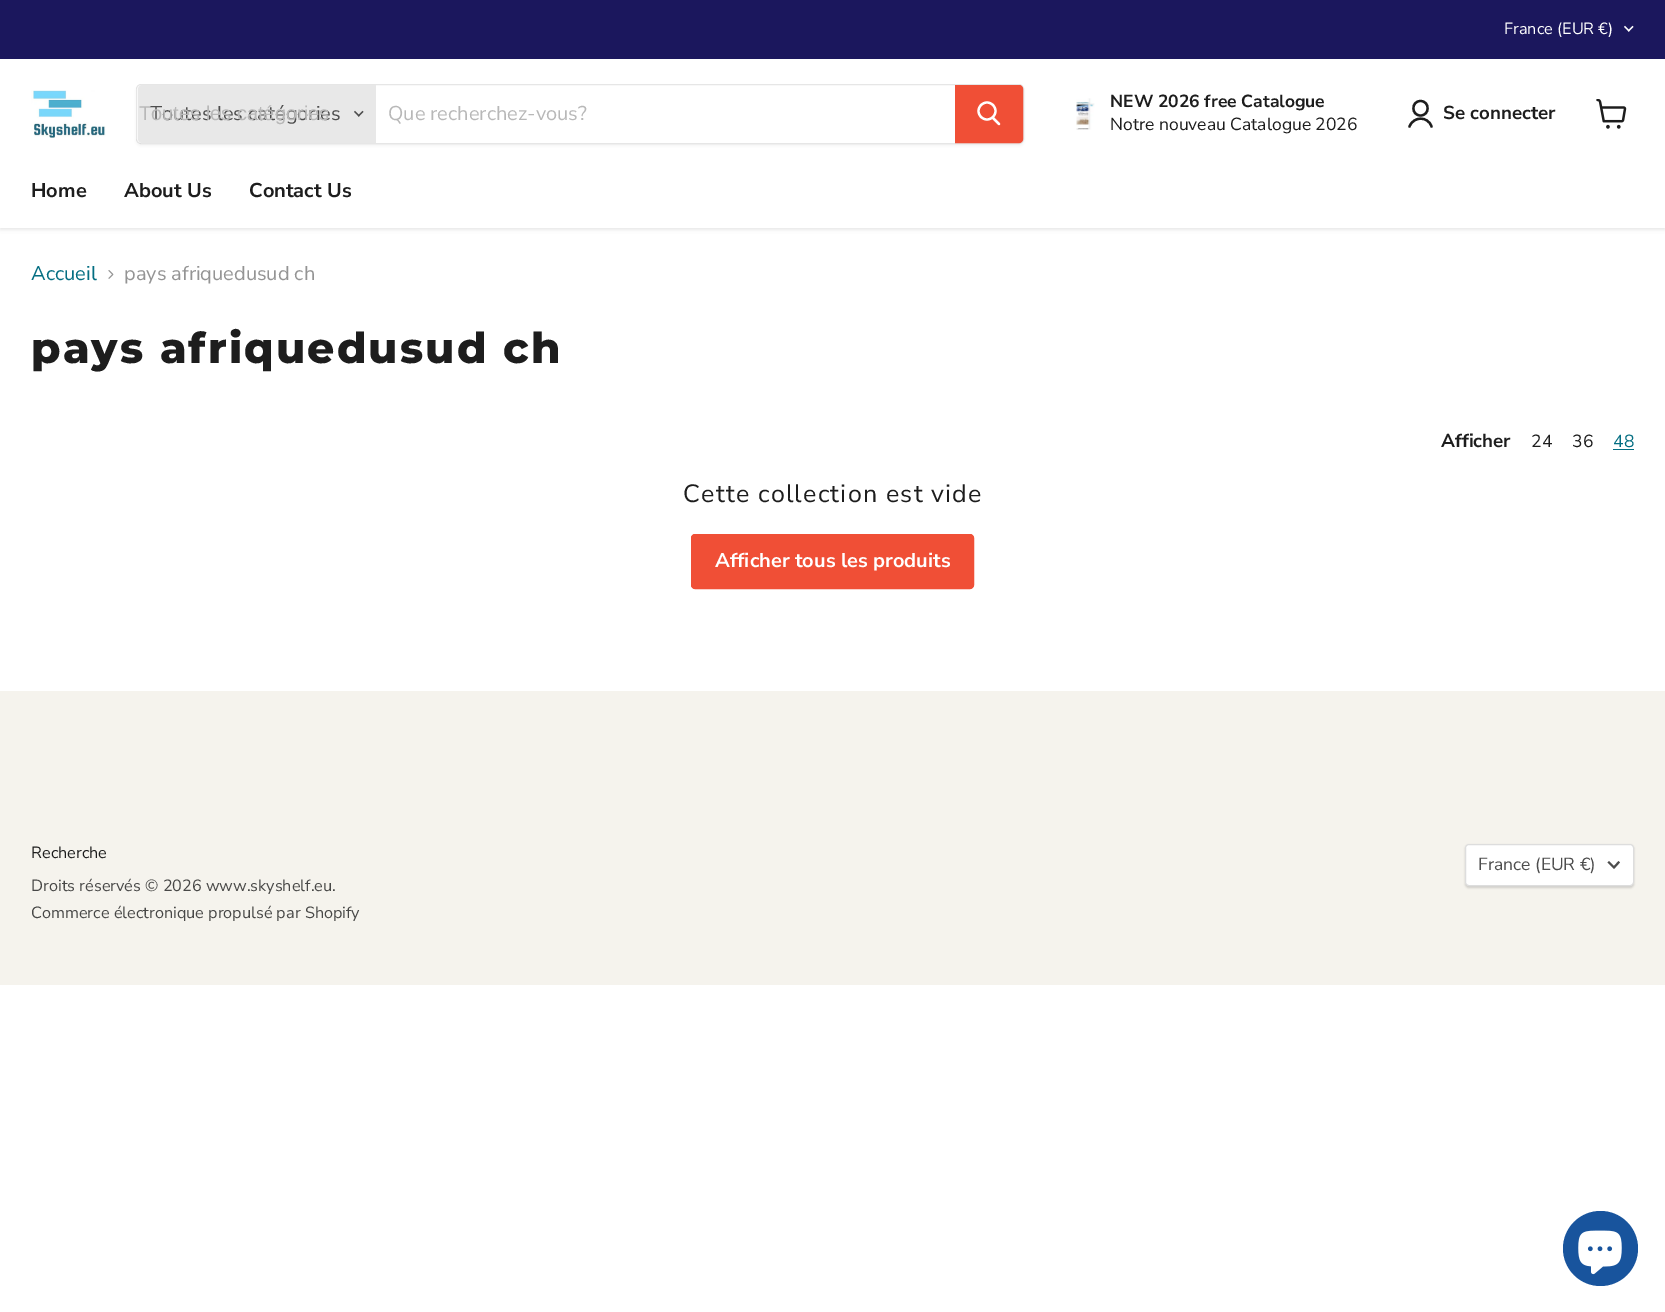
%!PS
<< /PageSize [1665 1312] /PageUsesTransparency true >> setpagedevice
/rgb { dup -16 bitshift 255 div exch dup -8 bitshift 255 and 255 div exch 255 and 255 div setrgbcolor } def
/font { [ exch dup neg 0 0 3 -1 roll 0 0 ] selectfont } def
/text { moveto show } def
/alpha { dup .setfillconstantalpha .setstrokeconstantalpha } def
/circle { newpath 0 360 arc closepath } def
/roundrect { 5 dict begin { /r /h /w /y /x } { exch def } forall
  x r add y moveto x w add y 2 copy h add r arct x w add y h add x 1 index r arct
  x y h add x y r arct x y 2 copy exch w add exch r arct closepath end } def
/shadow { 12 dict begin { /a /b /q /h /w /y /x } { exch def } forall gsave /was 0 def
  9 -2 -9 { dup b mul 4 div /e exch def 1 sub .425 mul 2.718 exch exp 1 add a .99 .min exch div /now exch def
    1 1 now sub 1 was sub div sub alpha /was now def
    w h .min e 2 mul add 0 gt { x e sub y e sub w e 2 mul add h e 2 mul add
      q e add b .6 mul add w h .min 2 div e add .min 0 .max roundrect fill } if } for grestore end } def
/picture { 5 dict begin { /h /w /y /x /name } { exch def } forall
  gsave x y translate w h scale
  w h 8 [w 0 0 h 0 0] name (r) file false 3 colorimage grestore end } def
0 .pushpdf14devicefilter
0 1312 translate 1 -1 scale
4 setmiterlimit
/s1 { /NunitoSans-Regular 16.25 font 16#FFFFFF rgb } def
/s2 { /NunitoSans-Regular 20 font 16#4D4D4D rgb } def
/s3 { /LiberationSans-Regular 20 font 16#B8B8B8 rgb } def
/s4 { /NunitoSans-Regular 20 font 16#B8B8B8 rgb } def
/s5 { /NunitoSans-Bold 17.5 font 16#1D1D1D rgb } def
/s6 { /NunitoSans-Regular 17.5 font 16#1D1D1D rgb } def
/s7 { /NunitoSans-Bold 18.75 font 16#1D1D1D rgb } def
/s8 { /NunitoSans-Bold 20 font 16#1D1D1D rgb } def
/s9 { /NunitoSans-Regular 20 font 16#046E82 rgb } def
/s10 { /NunitoSans-Regular 20 font 16#949494 rgb } def
/s11 { /NunitoSans-Regular 17.5 font 16#046E82 rgb } def
/s12 { /NunitoSans-Bold 20 font 16#FFFFFF rgb } def
/s13 { /NunitoSans-Regular 16.25 font 16#1D1D1D rgb } def
/s14 { /NunitoSans-Regular 16.25 font 16#484847 rgb } def
/s15 { /NunitoSans-Regular 17.5 font 16#4D4D4D rgb } def
16#FFFFFF rgb
0 0 1665 1312 rectfill
16#808080 rgb
0 61 1665 168 0 2.5 0.25 shadow
16#1B175D rgb
0 0 1665 59 rectfill
s1
(France \(EUR €\)) 1504 34 text
(pic1.raw) 1624 25 10 7 picture
0 59 1665 169 rectfill
(pic2.raw) 31 90 75 48 picture
gsave
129 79 moveto 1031 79 lineto 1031 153 lineto 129 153 lineto closepath 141 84 moveto 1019 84 lineto 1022 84 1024 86 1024 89 curveto 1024 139 lineto 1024 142 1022 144 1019 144 curveto 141 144 lineto 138 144 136 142 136 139 curveto 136 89 lineto 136 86 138 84 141 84 curveto closepath eoclip newpath
16#808080 rgb
136 86 888 60 5 2 0.11 shadow
grestore
0.2 alpha
16#808080 rgb
136.5 84.5 887 59 4.5 roundrect stroke
1 alpha
16#E8E8E8 rgb
142 85 moveto 376 85 lineto 376 143 lineto 142 143 lineto 140 143 138 141 138 139 curveto 138 89 lineto 138 87 140 85 142 85 curveto closepath fill
s2
(Toutes les catégories) 150 120 text
s3
(Toutes les catégories) 139 120 text
(pic3.raw) 354 110 10 7 picture
s4
(Que recherchez-vous?) 388 120 text
16#F04F36 rgb
955.5 85.5 moveto 1019 85.5 lineto 1021 85.5 1022.5 87 1022.5 89 curveto 1022.5 139 lineto 1022.5 141 1021 142.5 1019 142.5 curveto 955.5 142.5 lineto closepath gsave fill grestore
stroke
16#FFFFFF rgb
2.2 setlinewidth
1 setlinecap
999 124 moveto 993 118 lineto stroke
0 setlinecap
987 111 8.5 circle stroke
(pic4.raw) 1076 98 19 32 picture
s5
(NEW 2026 free Catalogue) 1110 107 text
s6
(Notre nouveau Catalogue 2026) 1110 130 text
2.3 setlinewidth
1 setlinecap
1 setlinejoin
1420.5 115.5 moveto 1430 115.5 1430 101 1420.5 101 curveto 1411 101 1411 115.5 1420.5 115.5 curveto closepath 1431.5 126.5 moveto 1428 116 1413.5 116 1409.5 126.5 curveto stroke
s7
(Se connecter) 1443 119 text
(pic5.raw) 1596 99 31 30 picture
s8
(Home) 31 197 text
(About Us) 124 197 text
(Contact Us) 249 197 text
s9
(Accueil) 31 280 text
(pic6.raw) 108 270 6 9 picture
s10
(pays afriquedusud ch) 124 280 text
/Montserrat-ExtraBold 42.5 font
16#1D1D1D rgb
31 363 moveto 2.1 0 (pays afriquedusud ch) ashow
s7
(Afficher) 1441 447 text
s6
(24) 1531 447 text
(36) 1572 447 text
s11
(48) 1613 447 text
1613 449 21 1 rectfill
/NunitoSans-Regular 25 font
16#1D1D1D rgb
683 502 moveto 1.25 0 (Cette collection est vide) ashow
16#F04F36 rgb
691.5 534.5 282 54 3.5 roundrect gsave fill grestore
1 setlinewidth
0 setlinecap
0 setlinejoin
stroke
s12
(Afficher tous les produits) 715 567 text
16#F5F3ED rgb
0 691 1665 294 rectfill
s13
(Recherche) 31 858 text
s14
(Droits réservés © 2026 www.skyshelf.eu.) 31 891 text
(Commerce électronique propulsé par Shopify) 31 918 text
16#000000 rgb
1465 845 169 43 4 1 0.15 shadow
16#FFFFFF rgb
1465.5 844.5 168 41 3.5 roundrect gsave fill grestore
16#DDDDDD rgb
stroke
s15
(France \(EUR €\)) 1478 870 text
2 setlinewidth
2 setlinecap
1614 867.5 moveto 1618.5 862.5 lineto 1614 867.5 moveto 1609 862.5 lineto stroke
16#18549D rgb
1600.5 1248.5 37.5 circle fill
(pic7.raw) 1578 1230 44 45 picture
.poppdf14devicefilter showpage
